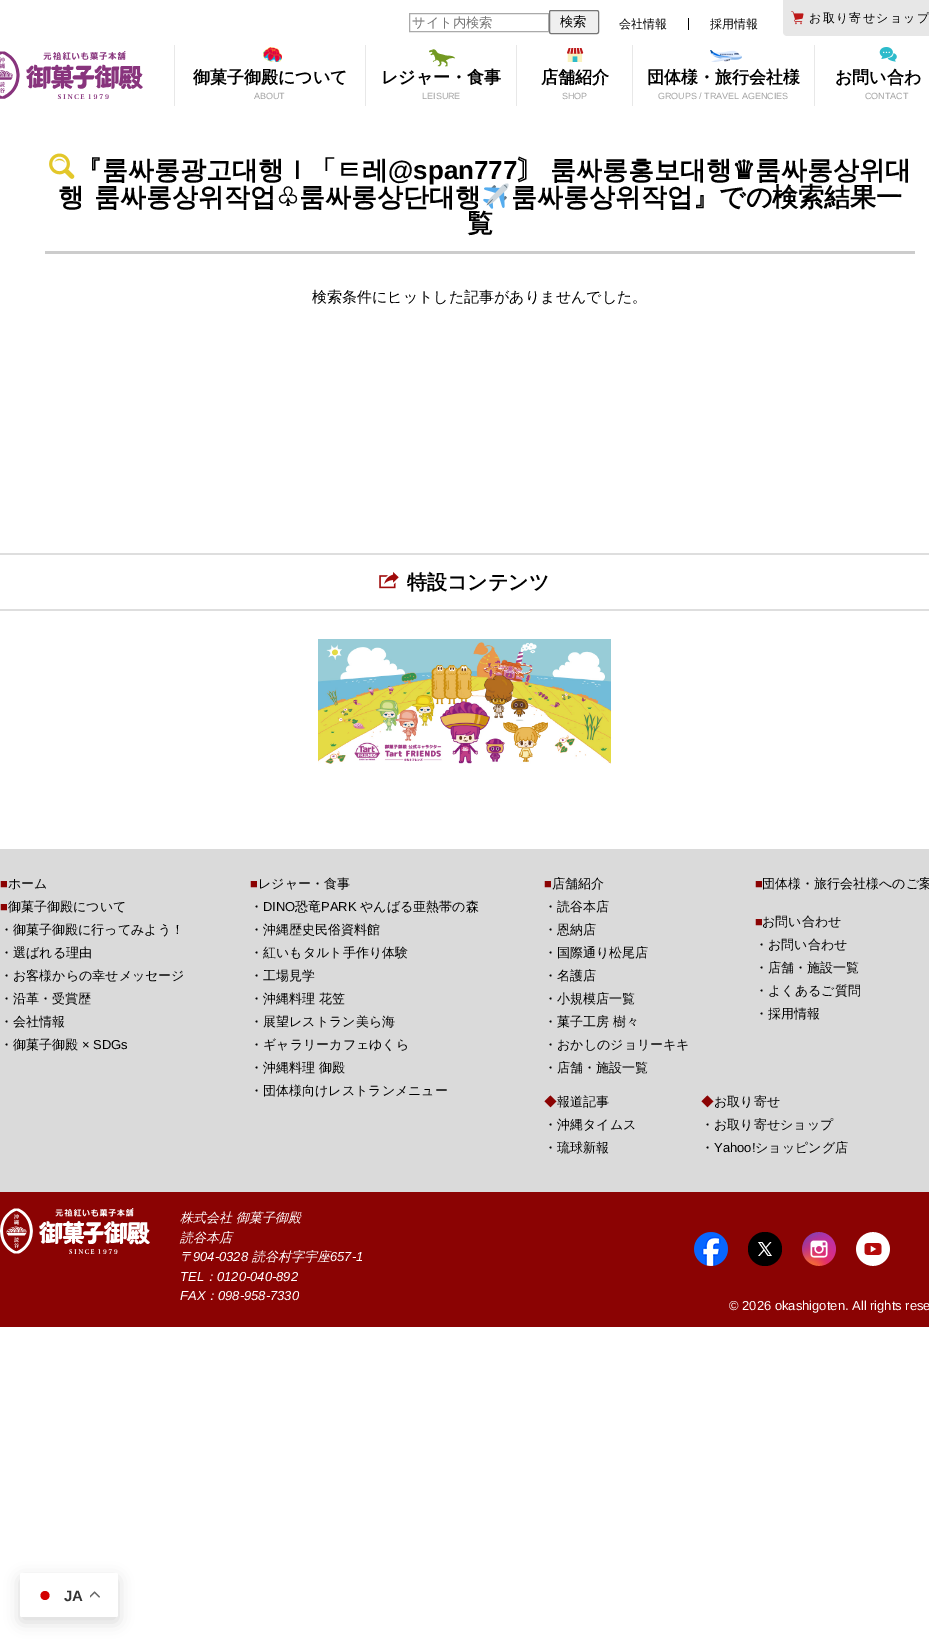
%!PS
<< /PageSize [929 1639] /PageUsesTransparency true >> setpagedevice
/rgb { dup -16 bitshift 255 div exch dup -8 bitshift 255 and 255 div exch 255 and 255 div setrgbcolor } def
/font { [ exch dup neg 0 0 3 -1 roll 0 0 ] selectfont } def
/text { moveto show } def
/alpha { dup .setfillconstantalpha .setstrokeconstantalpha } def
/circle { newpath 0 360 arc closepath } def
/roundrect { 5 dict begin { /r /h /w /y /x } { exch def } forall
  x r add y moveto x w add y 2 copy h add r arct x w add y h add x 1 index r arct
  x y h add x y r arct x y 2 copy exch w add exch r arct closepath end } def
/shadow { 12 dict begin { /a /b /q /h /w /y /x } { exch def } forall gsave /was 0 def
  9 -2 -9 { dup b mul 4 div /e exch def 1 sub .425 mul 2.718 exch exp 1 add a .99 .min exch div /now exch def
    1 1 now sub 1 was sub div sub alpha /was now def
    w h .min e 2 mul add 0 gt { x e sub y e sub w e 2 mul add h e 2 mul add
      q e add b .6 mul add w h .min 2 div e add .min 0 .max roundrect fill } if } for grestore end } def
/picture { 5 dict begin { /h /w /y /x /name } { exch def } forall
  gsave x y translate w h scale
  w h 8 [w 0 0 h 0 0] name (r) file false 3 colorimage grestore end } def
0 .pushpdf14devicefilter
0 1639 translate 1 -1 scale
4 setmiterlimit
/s1 { /WenQuanYiZenHei-Medium 13.25 font 16#757575 rgb } def
/s2 { /WenQuanYiZenHei-Medium 13.25 font 16#000000 rgb } def
/s3 { /WenQuanYiZenHei-Medium 12 font 16#000000 rgb } def
/s4 { /WenQuanYiZenHei-Bold 17 font 16#000000 rgb } def
/s5 { /LiberationSans-Regular 9 font 16#A1A1A1 rgb } def
/s6 { /WenQuanYiZenHei-Bold 26 font 16#000000 rgb } def
/s7 { /LiberationSans-Bold 26 font 16#000000 rgb } def
/s8 { /DejaVuSans-Bold 26 font 16#000000 rgb } def
/s9 { /WenQuanYiZenHei-Medium 15 font 16#000000 rgb } def
/s10 { /WenQuanYiZenHei-Bold 20 font 16#000000 rgb } def
/s11 { /LiberationSans-Regular 13 font 16#8B0303 rgb } def
/s12 { /WenQuanYiZenHei-Medium 13 font 16#000000 rgb } def
/s13 { /LiberationSans-Regular 13 font 16#000000 rgb } def
/s14 { /WenQuanYiZenHei-Medium 13 font 16#8B0303 rgb } def
/s15 { /WenQuanYiZenHei-MediumItalic 13 font 16#FFFFFF rgb } def
/s16 { /LiberationSans-Italic 13 font 16#FFFFFF rgb } def
/s17 { /LiberationSans-Regular 13 font 16#FFFFFF rgb } def
/s18 { /LiberationSans-Bold 15 font 16#333333 rgb } def
16#FFFFFF rgb
0 0 929 1639 rectfill
16#AAAAAA rgb
409.5 13.5 139 18 rectstroke
s1
(サイト内検索) 412 27 text
16#EFEFEF rgb
549.5 10.5 49 23 1.5 roundrect gsave fill grestore
16#767676 rgb
stroke
s2
(検索) 560 26 text
688 18 1 12 rectfill
s3
(会社情報) 619 28 text
(採用情報) 710 28 text
16#E7E7E7 rgb
783 0 moveto 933 0 lineto 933 32 lineto 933 34 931 36 929 36 curveto 787 36 lineto 785 36 783 34 783 32 curveto closepath fill
(pic1.raw) 791 11 13 14 picture
16#000000 rgb
809 22 moveto 1.25 0 (お取り寄せショップ) ashow
(pic2.raw) 0 51 143 48 picture
16#E8E8E8 rgb
365 45 1 61 rectfill
174 45 1 61 rectfill
(pic3.raw) 263 47 19 15 picture
s4
(御菓子御殿について) 193 83 text
s5
(ABOUT) 254 99 text
16#E8E8E8 rgb
516 45 1 61 rectfill
(pic4.raw) 429 49 27 18 picture
s4
(レジャー・食事) 381 83 text
s5
(LEISURE) 422 99 text
16#E8E8E8 rgb
632 45 1 61 rectfill
(pic5.raw) 567 48 17 14 picture
s4
(店舗紹介) 541 83 text
s5
(SHOP) 562 99 text
16#E8E8E8 rgb
814 45 1 61 rectfill
(pic6.raw) 710 50 32 12 picture
s4
(団体様・旅行会社様) 647 83 text
s5
(GROUPS / TRAVEL AGENCIES) 658 99 text
(pic7.raw) 879 47 18 15 picture
s4
(お問い合わ) 835 83 text
s5
(CONTACT) 865 99 text
16#CCCCCC rgb
45 251 870 3 rectfill
(pic8.raw) 49 153 26 26 picture
s6
(『룸싸롱광고대행Ｉ「ㅌ레) 76 179 text
s7
(@span777) 388 179 text
/WenQuanYiZenHei-Bold 26 font
517 179 moveto -1 0 32 (〙 룸싸롱홍보대행) widthshow
s8
(♛) 732 179 text
s6
(룸싸롱상위대) 755 179 text
58 206 moveto 2 0 32 (행 룸싸롱상위작업) widthshow
s8
(♧) 276 206 text
s6
(룸싸롱상단대행) 299 206 text
(pic9.raw) 483 183 26 26 picture
(룸싸롱상위작업』での検索結果一) 511 206 text
(覧) 467 232 text
s9
(検索条件にヒットした記事がありませんでした。) 312 302 text
16#DEDEDE rgb
0 553 929 2 rectfill
0 609 929 2 rectfill
(pic10.raw) 379 572 20 17 picture
s10
(特設コンテンツ) 407 589 text
(pic11.raw) 318 639 293 125 picture
16#DADADA rgb
0 849 929 343 rectfill
s11
(■) 0 888 text
s12
(ホーム) 8 888 text
s11
(■) 250 888 text
s12
(レジャー・食事) 258 888 text
(・) 250 911 text
s13
(DINO) 263 911 text
s12
(恐竜) 295 911 text
s13
(PARK) 321 911 text
s12
(やんばる亜熱帯の森) 360 911 text
(・沖縄歴史民俗資料館) 250 934 text
(・紅いもタルト手作り体験) 250 957 text
(・工場見学) 250 980 text
(・沖縄料理 花笠) 250 1003 text
(・展望レストラン美ら海) 250 1026 text
(・ギャラリーカフェゆくら) 250 1049 text
(・沖縄料理 御殿) 250 1072 text
(・団体様向けレストランメニュー) 250 1095 text
s11
(■) 544 888 text
s12
(店舗紹介) 552 888 text
(・読谷本店) 544 911 text
(・恩納店) 544 934 text
(・国際通り松尾店) 544 957 text
(・名護店) 544 980 text
(・小規模店一覧) 544 1003 text
(・菓子工房 樹々) 544 1026 text
(・おかしのジョリーキキ) 544 1049 text
(・店舗・施設一覧) 544 1072 text
s11
(■) 755 888 text
s12
(団体様・旅行会社様へのご案) 762 888 text
s11
(■) 0 911 text
s12
(御菓子御殿について) 8 911 text
(・御菓子御殿に行ってみよう！) 0 934 text
(・選ばれる理由) 0 957 text
(・お客様からの幸せメッセージ) 0 980 text
(・沿革・受賞歴) 0 1003 text
(・会社情報) 0 1026 text
(・御菓子御殿) 0 1049 text
s13
(× SDGs) 82 1049 text
s11
(■) 755 926 text
s12
(お問い合わせ) 762 926 text
(・お問い合わせ) 755 949 text
(・店舗・施設一覧) 755 972 text
(・よくあるご質問) 755 995 text
(・採用情報) 755 1018 text
s14
(◆) 544 1106 text
s12
(報道記事) 557 1106 text
(・沖縄タイムス) 544 1129 text
(・琉球新報) 544 1152 text
s14
(◆) 701 1106 text
s12
(お取り寄せ) 714 1106 text
(・お取り寄せショップ) 701 1129 text
(・) 701 1152 text
s13
(Yahoo!) 714 1152 text
s12
(ショッピング店) 755 1152 text
16#8B0303 rgb
0 1192 929 135 rectfill
(pic12.raw) 0 1208 150 46 picture
s15
(株式会社 御菓子御殿) 180 1222 text
(読谷本店) 180 1242 text
(〒) 180 1261 text
s16
(904-0328) 193 1261 text
s15
(読谷村字宇座) 252 1261 text
s16
(657-1) 330 1261 text
(TEL) 180 1281 text
s15
(：) 204 1281 text
s16
(0120-040-892) 217 1281 text
(FAX) 180 1300 text
s15
(：) 205 1300 text
s16
(098-958-7330) 218 1300 text
(pic13.raw) 694 1232 34 34 picture
(pic14.raw) 748 1232 34 34 picture
(pic15.raw) 802 1232 34 34 picture
(pic16.raw) 856 1232 34 34 picture
s17
(© 2026 okashigoten. All rights rese) 729 1310 text
16#000000 rgb
20 1578 98 44 2 7.5 0.15 shadow
16#FFFFFF rgb
20 1573 98 44 2 roundrect fill
16#D30000 rgb
45 1595.5 4.5 circle fill
s18
(JA) 64 1601 text
(pic17.raw) 90 1591 10 7 picture
.poppdf14devicefilter showpage
